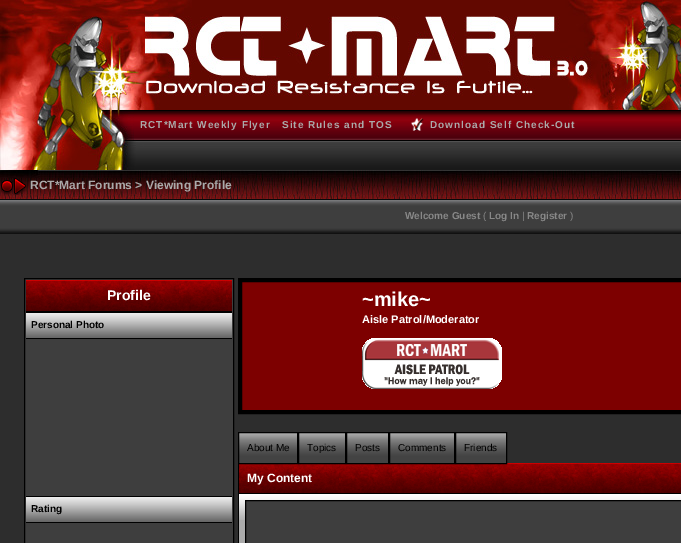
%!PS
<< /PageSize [681 543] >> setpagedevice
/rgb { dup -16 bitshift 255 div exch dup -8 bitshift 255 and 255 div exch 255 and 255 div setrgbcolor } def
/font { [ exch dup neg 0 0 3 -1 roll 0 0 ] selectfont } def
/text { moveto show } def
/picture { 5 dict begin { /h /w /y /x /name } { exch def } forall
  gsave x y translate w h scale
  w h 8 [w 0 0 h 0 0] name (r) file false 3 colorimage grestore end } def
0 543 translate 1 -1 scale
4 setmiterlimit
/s1 { /LiberationSans-Bold 12 font 16#AAAAAA rgb } def
/s2 { /LiberationSans-Bold 10 font 16#888888 rgb } def
/s3 { /LiberationSans-Regular 10 font 16#888888 rgb } def
/s4 { /LiberationSans-Bold 14 font 16#FFFFFF rgb } def
/s5 { /LiberationSans-Bold 10 font 16#000000 rgb } def
/s6 { /LiberationSans-Bold 20 font 16#FFFFFF rgb } def
/s7 { /LiberationSans-Bold 11 font 16#FFFFFF rgb } def
/s8 { /LiberationSans-Regular 10 font 16#000000 rgb } def
/s9 { /LiberationSans-Bold 12 font 16#FFFFFF rgb } def
16#2D2D2D rgb
0 0 681 543 rectfill
(pic1.raw) 0 0 681 110 picture
(pic2.raw) 134 110 547 30 picture
(pic3.raw) 0 110 134 30 picture
/LiberationSans-Bold 10 font
16#AAAAAA rgb
140 128 moveto 1 0 (RCT*Mart Weekly Flyer) ashow
282 128 moveto 1 0 (Site Rules and TOS) ashow
(pic4.raw) 411 118 13 13 picture
430 128 moveto 1 0 (Download Self Check-Out) ashow
(pic5.raw) 0 140 681 30 picture
(pic6.raw) 0 170 681 29 picture
(pic7.raw) 1 178 25 17 picture
s1
(RCT*Mart Forums > Viewing Profile) 30 189 text
(pic8.raw) 0 199 681 35 picture
s2
(Welcome Guest) 405 219 text
s3
(\() 483 219 text
s2
(Log In) 489 219 text
s3
(|) 522 219 text
s2
(Register) 527 219 text
s3
(\)) 570 219 text
16#3E3E3E rgb
24.5 278.5 moveto 233.5 278.5 lineto 233.5 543.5 lineto 24.5 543.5 lineto closepath gsave fill grestore
16#000000 rgb
stroke
(pic9.raw) 26 280 206 31 picture
26 311 206 2 rectfill
s4
(Profile) 107 300 text
(pic10.raw) 26 313 206 25 picture
16#000000 rgb
26 338 206 1 rectfill
s5
(Personal Photo) 31 328 text
(pic10.raw) 26 497 206 25 picture
26 496 206 1 rectfill
26 522 206 1 rectfill
(Rating) 31 512 text
16#7D0000 rgb
240 280 moveto 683 280 lineto 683 412 lineto 240 412 lineto closepath gsave fill grestore
16#000000 rgb
4 setlinewidth
stroke
s6
(~mike~) 362 306 text
s7
(Aisle Patrol/Moderator) 362 323 text
(pic11.raw) 362 338 140 51 picture
(pic12.raw) 239 433 58 30 picture
(pic17.raw) 239 463 442 30 picture
16#000000 rgb
238 463 1 30 rectfill
1 setlinewidth
238.5 432.5 59 31 rectstroke
s8
(About Me) 247 451 text
(pic13.raw) 299 433 46 30 picture
298.5 432.5 47 31 rectstroke
(Topics) 307 451 text
(pic14.raw) 347 433 41 30 picture
346.5 432.5 42 31 rectstroke
(Posts) 355 451 text
(pic15.raw) 390 433 64 30 picture
389.5 432.5 65 31 rectstroke
(Comments) 398 451 text
(pic16.raw) 456 433 50 30 picture
455.5 432.5 51 31 rectstroke
(Friends) 464 451 text
s9
(My Content) 247 482 text
16#000000 rgb
238.5 493.5 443 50 rectstroke
16#ABABAB rgb
239 520 6 23 rectfill
(pic18.raw) 239 494 442 26 picture
16#3E3E3E rgb
245.5 500.5 moveto 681.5 500.5 lineto 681.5 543.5 lineto 245.5 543.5 lineto closepath gsave fill grestore
16#000000 rgb
stroke
showpage
